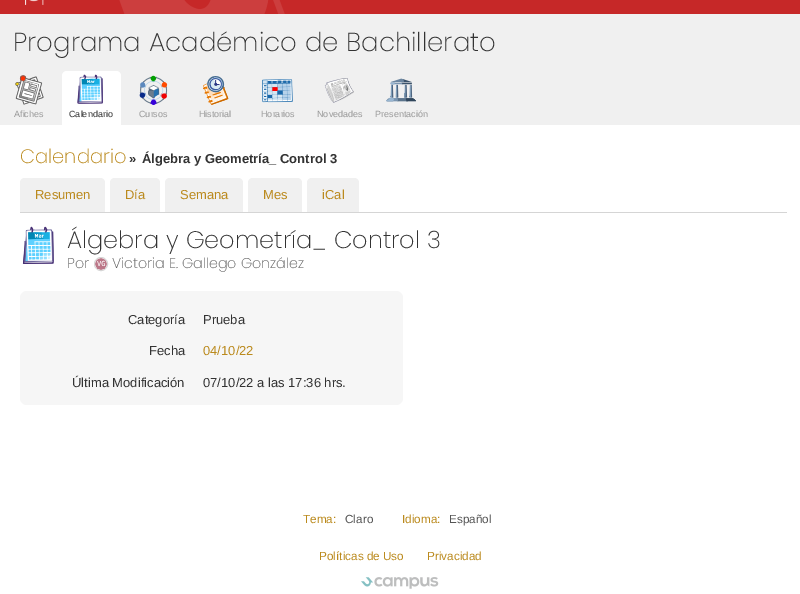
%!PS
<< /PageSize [800 594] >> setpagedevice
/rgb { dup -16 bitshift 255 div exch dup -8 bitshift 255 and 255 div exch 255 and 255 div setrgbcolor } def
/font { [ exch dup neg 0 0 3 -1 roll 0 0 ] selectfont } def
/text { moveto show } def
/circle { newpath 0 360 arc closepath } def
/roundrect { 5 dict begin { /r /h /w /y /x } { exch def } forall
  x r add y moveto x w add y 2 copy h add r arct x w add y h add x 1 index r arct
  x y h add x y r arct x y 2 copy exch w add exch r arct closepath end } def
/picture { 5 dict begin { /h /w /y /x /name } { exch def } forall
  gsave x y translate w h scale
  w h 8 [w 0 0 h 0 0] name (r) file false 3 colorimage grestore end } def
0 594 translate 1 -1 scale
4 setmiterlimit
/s1 { /Poppins-ExtraLight 26 font 16#333333 rgb } def
/s2 { /LiberationSans-Regular 9 font 16#999999 rgb } def
/s3 { /LiberationSans-Regular 9 font 16#333333 rgb } def
/s4 { /Poppins-ExtraLight 19.5 font 16#BB8A1D rgb } def
/s5 { /LiberationSans-Bold 13 font 16#333333 rgb } def
/s6 { /LiberationSans-Regular 13 font 16#BB8A1D rgb } def
/s7 { /Poppins-ExtraLight 24 font 16#333333 rgb } def
/s8 { /Poppins-ExtraLight 14.25 font 16#555555 rgb } def
/s9 { /LiberationSans-Regular 13 font 16#333333 rgb } def
/s10 { /LiberationSans-Regular 11.75 font 16#BB8A1D rgb } def
/s11 { /LiberationSans-Regular 11.75 font 16#555555 rgb } def
16#FFFFFF rgb
0 0 800 594 rectfill
16#C62828 rgb
0 0 800 14 rectfill
(pic1.raw) 25 0 19 5 picture
(pic2.raw) 119 0 166 14 picture
16#F0F0F0 rgb
0 14 800 111 rectfill
s1
(Programa Académico de Bachillerato) 13 51 text
(pic3.raw) 15 75 29 30 picture
s2
(Afiches) 14 117 text
16#FFFFFF rgb
67 71 moveto 116 71 lineto 119 71 121 73 121 76 curveto 121 125 lineto 62 125 lineto 62 76 lineto 62 73 64 71 67 71 curveto closepath fill
(pic4.raw) 77 74 26 30 picture
s3
(Calendario) 69 117 text
(pic5.raw) 139 75 29 30 picture
s2
(Cursos) 139 117 text
(pic6.raw) 203 76 26 29 picture
(Historial) 199 117 text
(pic7.raw) 262 79 31 24 picture
(Horarios) 261 117 text
(pic8.raw) 324 78 30 25 picture
(Novedades) 317 117 text
(pic9.raw) 386 78 30 24 picture
(Presentación) 375 117 text
s4
(Calendario) 20 163 text
s5
(») 129 163 text
(Álgebra y Geometría_ Control 3) 142 163 text
16#D5D5D5 rgb
20 212 767 1 rectfill
16#F0F0F0 rgb
25 178 moveto 100 178 lineto 103 178 105 180 105 183 curveto 105 212 lineto 20 212 lineto 20 183 lineto 20 180 22 178 25 178 curveto closepath fill
s6
(Resumen) 35 199 text
16#F0F0F0 rgb
115 178 moveto 155 178 lineto 158 178 160 180 160 183 curveto 160 212 lineto 110 212 lineto 110 183 lineto 110 180 112 178 115 178 curveto closepath fill
s6
(Día) 125 199 text
16#F0F0F0 rgb
170 178 moveto 238 178 lineto 241 178 243 180 243 183 curveto 243 212 lineto 165 212 lineto 165 183 lineto 165 180 167 178 170 178 curveto closepath fill
s6
(Semana) 180 199 text
16#F0F0F0 rgb
253 178 moveto 297 178 lineto 300 178 302 180 302 183 curveto 302 212 lineto 248 212 lineto 248 183 lineto 248 180 250 178 253 178 curveto closepath fill
s6
(Mes) 263 199 text
16#F0F0F0 rgb
312 178 moveto 354 178 lineto 357 178 359 180 359 183 curveto 359 212 lineto 307 212 lineto 307 183 lineto 307 180 309 178 312 178 curveto closepath fill
s6
(iCal) 322 199 text
(pic10.raw) 22 226 32 38 picture
s7
(Álgebra y Geometría_ Control 3) 67 248 text
s8
(Por) 67 268 text
16#D5D5D5 rgb
101 264 6.5 circle stroke
s8
(Victoria E. Gallego González) 112 268 text
(pic11.raw) 95 258 12 12 picture
16#F6F6F6 rgb
20 291 383 114 7 roundrect fill
s9
(Categoría) 128 324 text
(Prueba) 203 324 text
(Fecha) 149 355 text
s6
(04/10/22) 203 355 text
s9
(Última Modificación) 72 387 text
(07/10/22 a las 17:36 hrs.) 203 387 text
s10
(Tema:) 303 523 text
s11
(Claro) 345 523 text
s10
(Idioma:) 402 523 text
s11
(Español) 449 523 text
s10
(Políticas de Uso) 319 560 text
(Privacidad) 427 560 text
(pic12.raw) 361 577 78 12 picture
showpage
